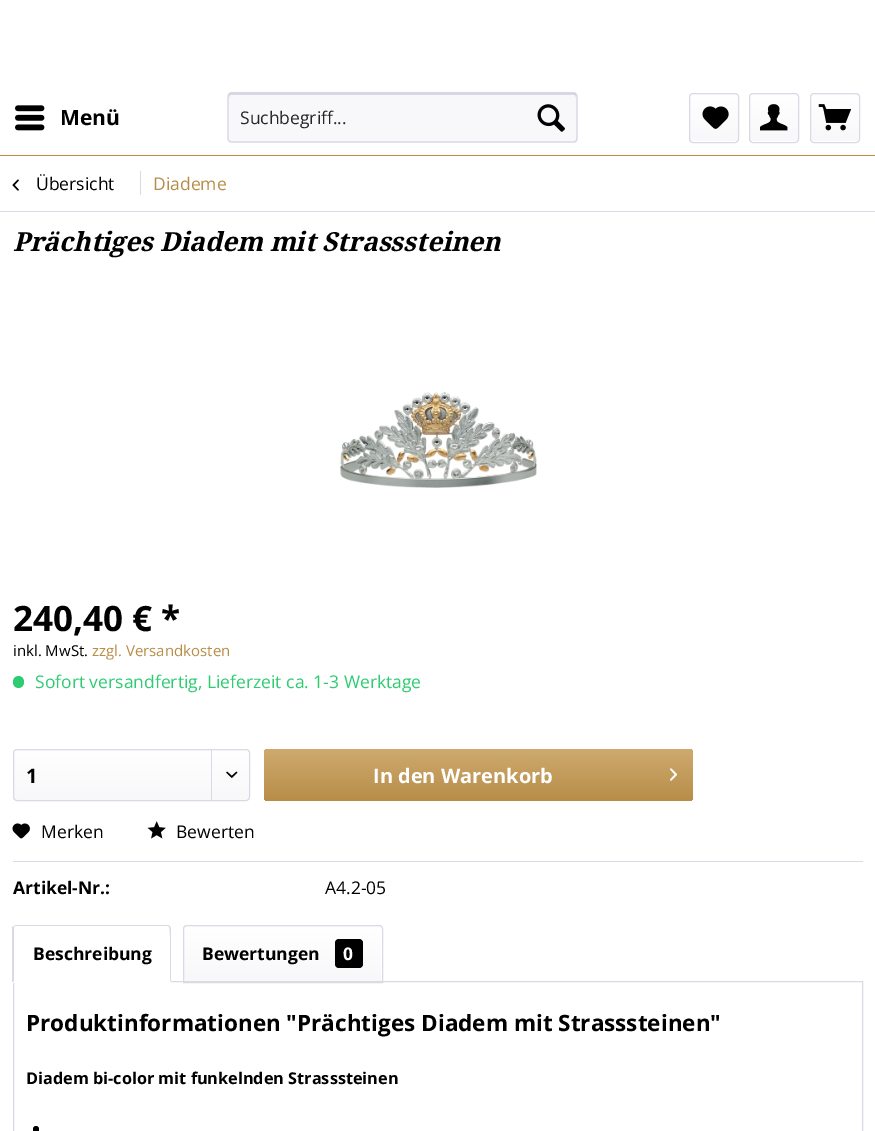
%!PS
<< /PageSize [875 1131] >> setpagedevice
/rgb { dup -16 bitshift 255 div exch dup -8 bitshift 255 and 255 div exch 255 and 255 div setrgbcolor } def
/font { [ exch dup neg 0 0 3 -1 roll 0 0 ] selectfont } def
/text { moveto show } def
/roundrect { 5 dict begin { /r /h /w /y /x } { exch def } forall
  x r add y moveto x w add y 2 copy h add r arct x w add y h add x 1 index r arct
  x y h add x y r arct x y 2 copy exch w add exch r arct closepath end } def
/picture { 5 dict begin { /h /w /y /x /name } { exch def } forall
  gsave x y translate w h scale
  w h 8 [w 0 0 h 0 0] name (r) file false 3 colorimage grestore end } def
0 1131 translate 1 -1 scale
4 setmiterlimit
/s1 { /OpenSans-Bold 21 font 16#000000 rgb } def
/s2 { /OpenSans-Regular 17.5 font 16#262626 rgb } def
/s3 { /OpenSans-Regular 17.5 font 16#000000 rgb } def
/s4 { /OpenSans-Regular 17.5 font 16#B88D48 rgb } def
/s5 { /DroidSerif-BoldItalic 26.25 font 16#000000 rgb } def
/s6 { /OpenSans-Bold 35 font 16#000000 rgb } def
/s7 { /OpenSans-Regular 15 font 16#000000 rgb } def
/s8 { /OpenSans-Regular 15 font 16#B88D48 rgb } def
/s9 { /OpenSans-Regular 17.5 font 16#2ECC71 rgb } def
/s10 { /OpenSans-Bold 20 font 16#000000 rgb } def
/s11 { /OpenSans-Bold 20 font 16#FFFFFF rgb } def
/s12 { /OpenSans-Bold 17.5 font 16#000000 rgb } def
/s13 { /OpenSans-Bold 17.5 font 16#FFFFFF rgb } def
/s14 { /OpenSans-Bold 22.5 font 16#000000 rgb } def
/s15 { /OpenSans-Bold 16.25 font 16#000000 rgb } def
16#FFFFFF rgb
0 0 875 1131 rectfill
16#B88D48 rgb
0 155 875 1 rectfill
(pic1.raw) 15 105 30 26 picture
s1
(Menü) 60 125 text
16#F8F8FA rgb
228 93 350 50 4 roundrect fill
16#DADAE5 rgb
231 95 moveto 574 95 lineto 575 95 576 96 576 98 curveto 576 96 576 94 574 94 curveto 231 94 lineto 229 95 lineto 229 98 lineto 229 96 230 95 231 95 curveto closepath fill
16#CBCBDB rgb
1.2 setlinewidth
229 94 moveto 231 93 lineto 574 93 lineto 576 94 lineto stroke
16#DADAE5 rgb
576 94 moveto 577 96 lineto 577 139 lineto 576 141 lineto 574 142 lineto 231 142 lineto 229 141 lineto 228 139 lineto 228 96 lineto 229 94 lineto stroke
s2
(Suchbegriff...) 240 124 text
(pic2.raw) 537 104 28 28 picture
gsave 690 94 48 47 2.5 roundrect clip newpath
<< /ShadingType 2 /ColorSpace /DeviceRGB /Coords [714 94 714 141] /Extend [true true] /Function << /FunctionType 2 /Domain [0 1] /C0 [1 1 1] /C1 [0.973 0.973 0.98] /N 1 >> >> shfill grestore
16#DADAE5 rgb
1 setlinewidth
689.5 93.5 49 49 3.5 roundrect stroke
(pic3.raw) 702 106 27 23 picture
gsave 750 94 48 47 2.5 roundrect clip newpath
<< /ShadingType 2 /ColorSpace /DeviceRGB /Coords [774 94 774 141] /Extend [true true] /Function << /FunctionType 2 /Domain [0 1] /C0 [1 1 1] /C1 [0.973 0.973 0.98] /N 1 >> >> shfill grestore
749.5 93.5 49 49 3.5 roundrect stroke
(pic4.raw) 760 104 28 27 picture
gsave 811 94 48 47 2.5 roundrect clip newpath
<< /ShadingType 2 /ColorSpace /DeviceRGB /Coords [835 94 835 141] /Extend [true true] /Function << /FunctionType 2 /Domain [0 1] /C0 [1 1 1] /C1 [0.973 0.973 0.98] /N 1 >> >> shfill grestore
810.5 93.5 49 49 3.5 roundrect stroke
(pic5.raw) 818 104 34 27 picture
0 211 875 1 rectfill
(pic6.raw) 12 179 7 12 picture
s3
(Übersicht) 36 190 text
16#DADAE5 rgb
140 171 1 24 rectfill
s4
(Diademe) 153 190 text
s5
(Prächtiges Diadem mit Strasssteinen) 13 251 text
(pic7.raw) 340 392 197 96 picture
s6
(240,40 € *) 13 631 text
s7
(inkl. MwSt.) 13 656 text
s8
(zzgl. Versandkosten) 92 656 text
16#2ECC71 rgb
13 676 11 12 5.5 roundrect fill
s9
(Sofort versandfertig, Lieferzeit ca. 1-3 Werktage) 35 688 text
gsave 14 750 235 50 2.5 roundrect clip newpath
<< /ShadingType 2 /ColorSpace /DeviceRGB /Coords [131 750 131 800] /Extend [true true] /Function << /FunctionType 2 /Domain [0 1] /C0 [1 1 1] /C1 [0.973 0.973 0.98] /N 1 >> >> shfill grestore
16#DADAE5 rgb
13.5 749.5 236 51 3.5 roundrect stroke
s10
(1) 26 783 text
16#DADAE5 rgb
211 750 1 50 rectfill
(pic8.raw) 226 771 12 7 picture
gsave 264 749 429 52 4 roundrect clip newpath
<< /ShadingType 2 /ColorSpace /DeviceRGB /Coords [478 749 478 801] /Extend [true true] /Function << /FunctionType 2 /Domain [0 1] /C0 [0.808 0.667 0.435] /C1 [0.722 0.553 0.282] /N 1 >> >> shfill grestore
s11
(In den Warenkorb) 373 783 text
(pic9.raw) 670 768 7 13 picture
16#DADAE5 rgb
13 861 850 1 rectfill
(pic10.raw) 12 823 18 16 picture
s3
(Merken) 41 838 text
(pic11.raw) 147 821 19 18 picture
(Bewerten) 176 838 text
s12
(Artikel-Nr.:) 13 894 text
s3
(A4.2-05) 325 894 text
16#DADAE5 rgb
13.5 981.5 849 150 rectstroke
16#FFFFFF rgb
17 925 moveto 167 925 lineto 169 925 171 927 171 929 curveto 171 983 lineto 13 983 lineto 13 929 lineto 13 927 15 925 17 925 curveto closepath fill
16#DADAE5 rgb
16 925 moveto 14 926 lineto 14 927 lineto 15 926 lineto 168 926 lineto 169 927 lineto 170 926 lineto 168 925 lineto closepath fill
170 926 moveto 171 929 lineto 171 982 lineto 170 981 lineto 170 975 171 929 169 927 curveto closepath fill
16#FFFFFF rgb
171 982 moveto 13 982 lineto 14 981 lineto 170 981 lineto closepath fill
16#DADAE5 rgb
12 927 moveto 14 926 lineto 14 927 lineto 14 929 lineto 14 981 lineto 13 982 lineto 12 982 lineto closepath fill
s12
(Beschreibung) 33 960 text
gsave 186.5 926 moveto 378.5 926 lineto 380 926 381 927 381 928.5 curveto 381 981 lineto 184 981 lineto 184 928.5 lineto 184 927 185 926 186.5 926 curveto closepath clip newpath
<< /ShadingType 2 /ColorSpace /DeviceRGB /Coords [283 926 283 981] /Extend [true true] /Function << /FunctionType 2 /Domain [0 1] /C0 [1 1 1] /C1 [0.973 0.973 0.98] /N 1 >> >> shfill grestore
16#DADAE5 rgb
187 925.5 moveto 379 925.5 lineto 381 925.5 382.5 927 382.5 929 curveto 382.5 982.5 lineto 183.5 982.5 lineto 183.5 929 lineto 183.5 927 185 925.5 187 925.5 curveto closepath stroke
s12
(Bewertungen) 202 960 text
335 939 28 29 4 roundrect fill
s13
(0) 343 960 text
s14
(Produktinformationen "Prächtiges Diadem mit Strasssteinen") 26 1031 text
s15
(Diadem bi-color mit funkelnden Strasssteinen) 26 1084 text
33 1126 6 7 3 roundrect fill
showpage
